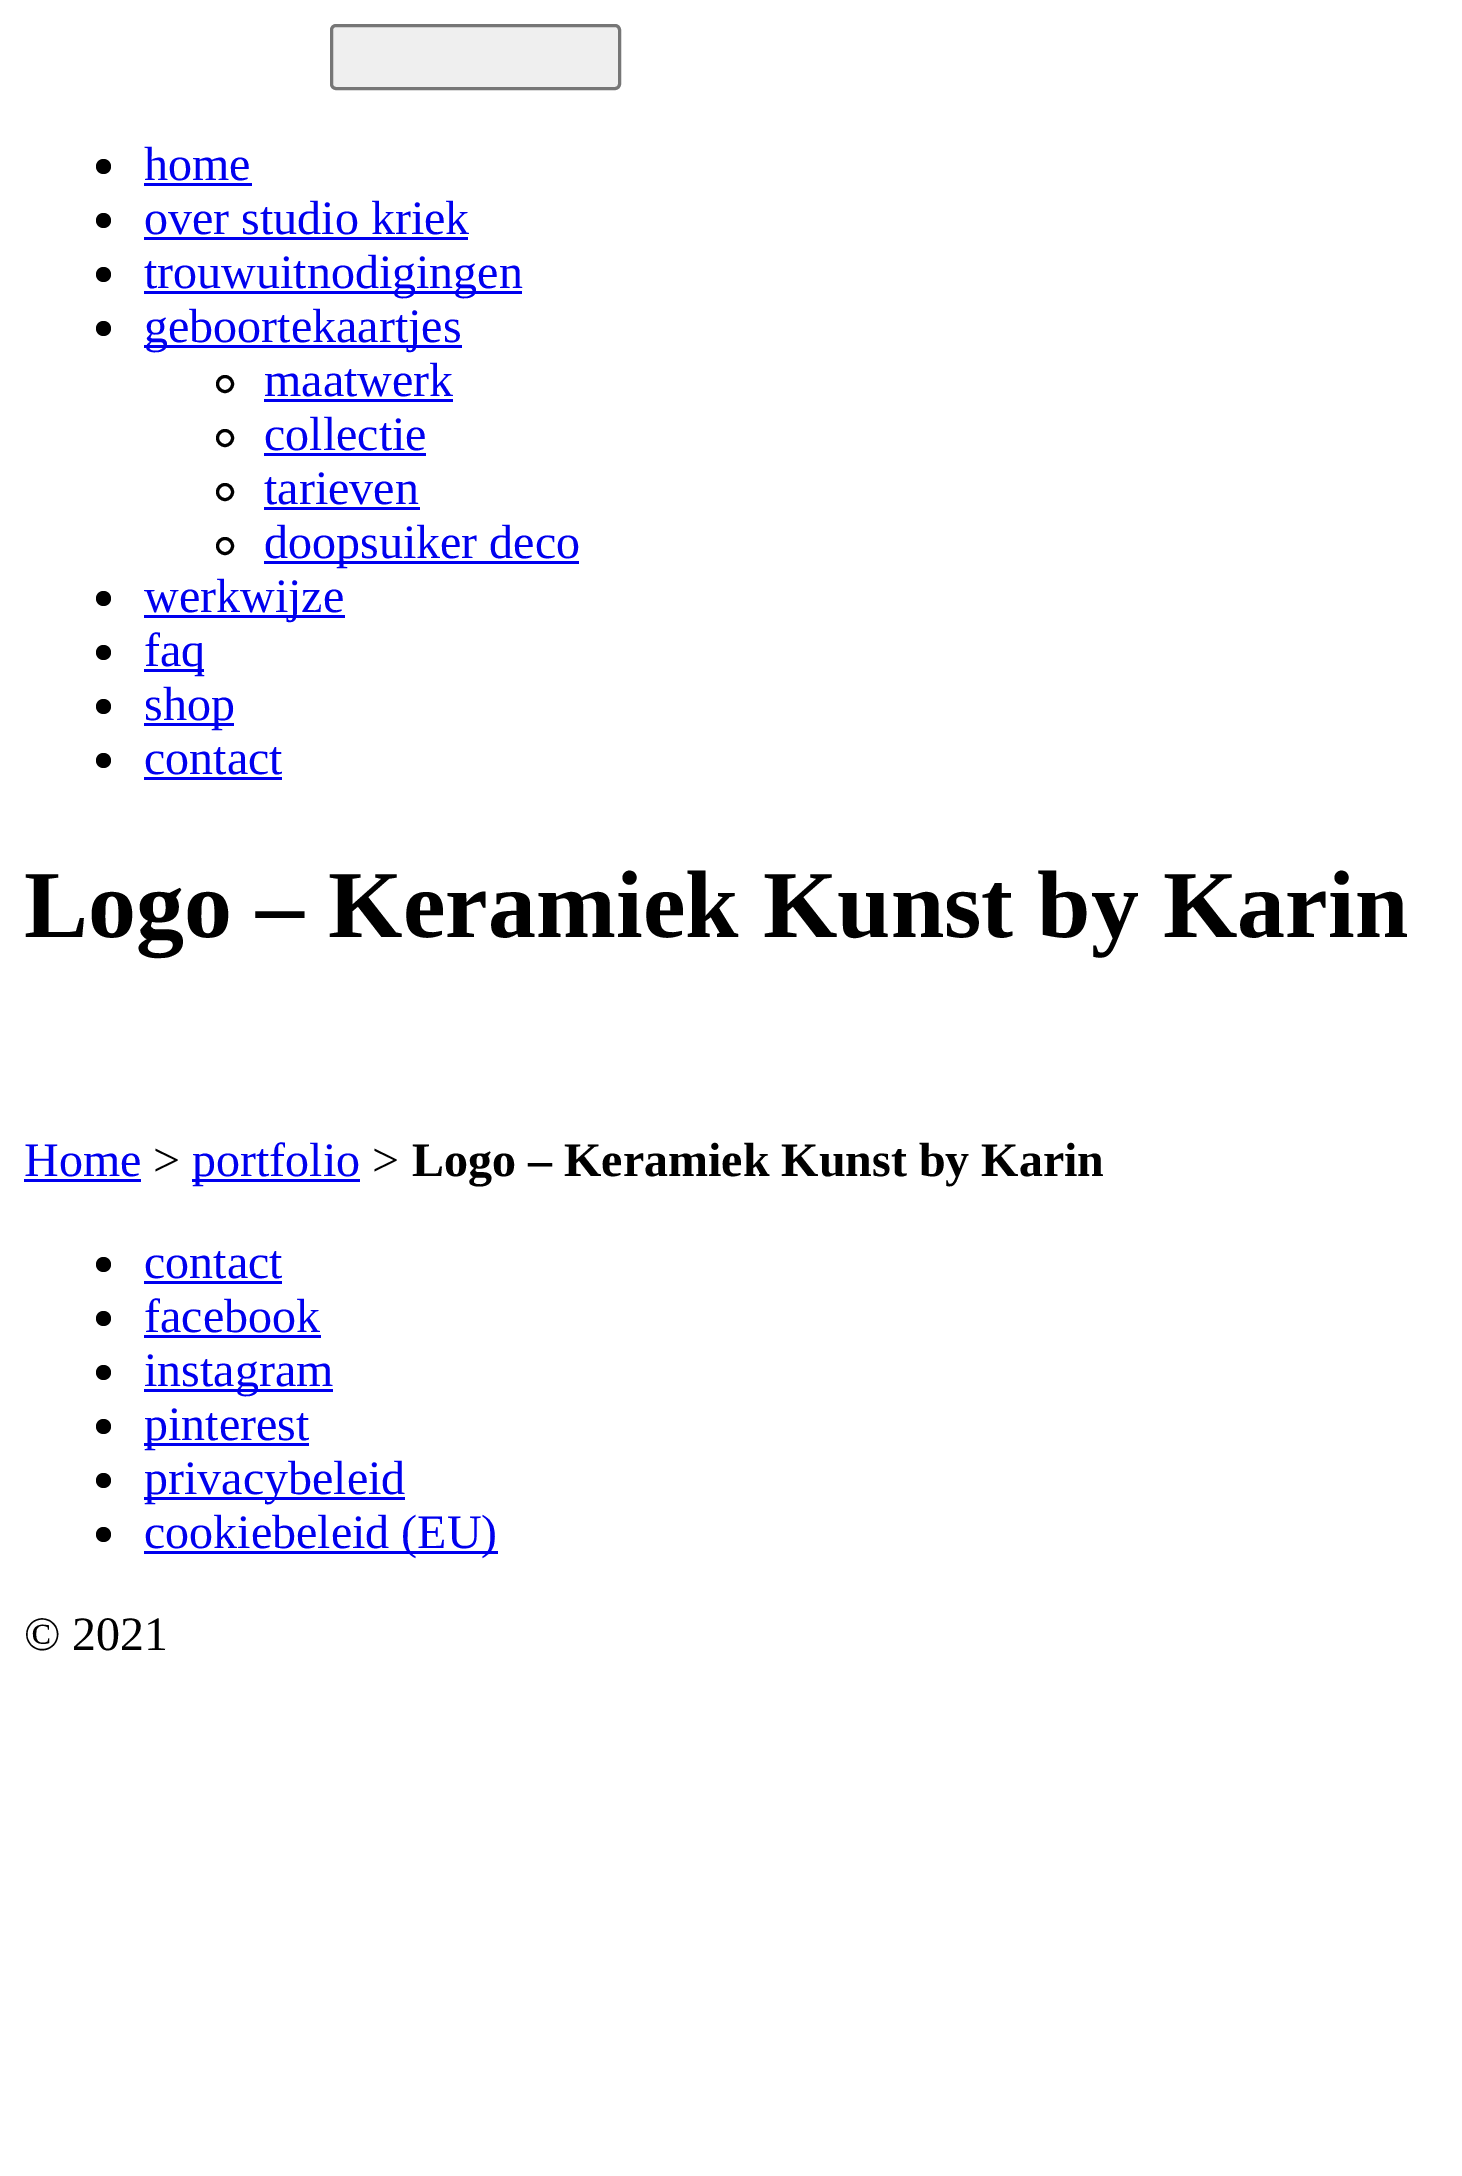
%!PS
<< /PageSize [1462 2176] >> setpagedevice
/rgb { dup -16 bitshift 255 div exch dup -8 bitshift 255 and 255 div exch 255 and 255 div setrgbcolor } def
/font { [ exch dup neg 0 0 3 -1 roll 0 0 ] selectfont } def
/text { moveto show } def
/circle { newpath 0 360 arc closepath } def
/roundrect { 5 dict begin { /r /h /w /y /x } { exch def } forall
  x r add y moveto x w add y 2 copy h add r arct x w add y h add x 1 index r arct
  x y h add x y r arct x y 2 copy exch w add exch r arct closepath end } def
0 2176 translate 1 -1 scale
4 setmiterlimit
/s1 { /LiberationSerif-Regular 48 font 16#0000EE rgb } def
/s2 { /LiberationSerif-Bold 96 font 16#000000 rgb } def
/s3 { /LiberationSerif-Regular 48 font 16#000000 rgb } def
/s4 { /LiberationSerif-Bold 48 font 16#000000 rgb } def
16#FFFFFF rgb
0 0 1462 2176 rectfill
16#EFEFEF rgb
331.5 25.5 288 63 4.5 roundrect gsave fill grestore
16#767676 rgb
3 setlinewidth
stroke
16#000000 rgb
103.5 166.5 7.5 circle fill
s1
(home) 144 180 text
144 183 108 3 rectfill
16#000000 rgb
103.5 220.5 7.5 circle fill
s1
(over studio kriek) 144 234 text
144 237 324 3 rectfill
16#000000 rgb
103.5 274.5 7.5 circle fill
16#0000EE rgb
144 291 378 3 rectfill
(trouwuitnodigingen) 144 288 text
16#000000 rgb
103.5 328.5 7.5 circle fill
16#0000EE rgb
144 345 318 3 rectfill
(geboortekaartjes) 144 342 text
16#000000 rgb
225 384 7.5 circle stroke
s1
(maatwerk) 264 396 text
264 399 189 3 rectfill
16#000000 rgb
225 438 7.5 circle stroke
s1
(collectie) 264 450 text
264 453 162 3 rectfill
16#000000 rgb
225 492 7.5 circle stroke
s1
(tarieven) 264 504 text
264 507 156 3 rectfill
16#000000 rgb
225 546 7.5 circle stroke
16#0000EE rgb
264 561 315 3 rectfill
(doopsuiker deco) 264 558 text
16#000000 rgb
103.5 598.5 7.5 circle fill
16#0000EE rgb
144 615 201 3 rectfill
(werkwijze) 144 612 text
16#000000 rgb
103.5 652.5 7.5 circle fill
16#0000EE rgb
144 669 60 3 rectfill
(faq) 144 666 text
16#000000 rgb
103.5 706.5 7.5 circle fill
16#0000EE rgb
144 723 90 3 rectfill
(shop) 144 720 text
16#000000 rgb
103.5 760.5 7.5 circle fill
s1
(contact) 144 774 text
144 777 138 3 rectfill
s2
(Logo – Keramiek Kunst by Karin) 24 937 text
s1
(Home) 24 1176 text
24 1179 117 3 rectfill
s3
(>) 153 1176 text
16#0000EE rgb
192 1179 168 3 rectfill
(portfolio) 192 1176 text
s3
(>) 372 1176 text
s4
(Logo – Keramiek Kunst by Karin) 412 1176 text
103.5 1264.5 7.5 circle fill
s1
(contact) 144 1278 text
144 1281 138 3 rectfill
16#000000 rgb
103.5 1318.5 7.5 circle fill
s1
(facebook) 144 1332 text
144 1335 177 3 rectfill
16#000000 rgb
103.5 1372.5 7.5 circle fill
16#0000EE rgb
144 1389 189 3 rectfill
(instagram) 144 1386 text
16#000000 rgb
103.5 1426.5 7.5 circle fill
16#0000EE rgb
144 1443 165 3 rectfill
(pinterest) 144 1440 text
16#000000 rgb
103.5 1480.5 7.5 circle fill
16#0000EE rgb
144 1497 261 3 rectfill
(privacybeleid) 144 1494 text
16#000000 rgb
103.5 1534.5 7.5 circle fill
16#0000EE rgb
144 1551 354 3 rectfill
(cookiebeleid \(EU\)) 144 1548 text
s3
(© 2021) 24 1650 text
showpage
